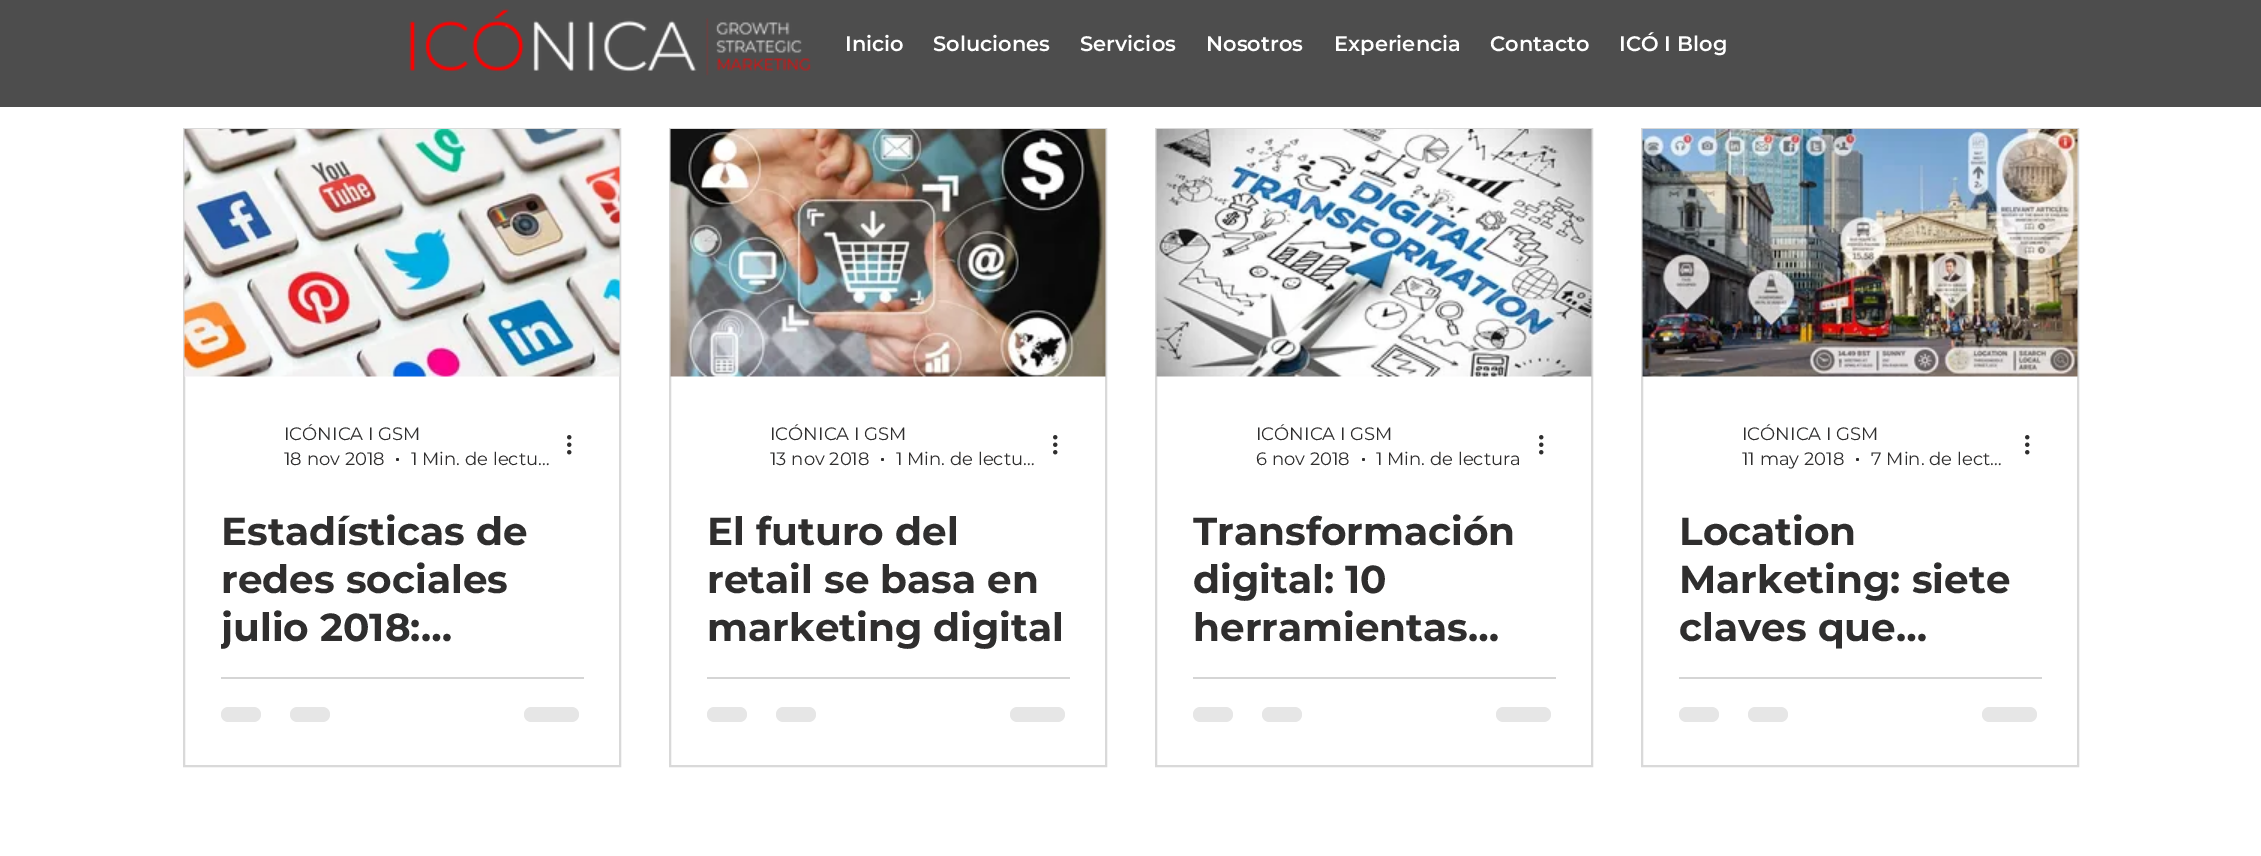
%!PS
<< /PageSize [2261 856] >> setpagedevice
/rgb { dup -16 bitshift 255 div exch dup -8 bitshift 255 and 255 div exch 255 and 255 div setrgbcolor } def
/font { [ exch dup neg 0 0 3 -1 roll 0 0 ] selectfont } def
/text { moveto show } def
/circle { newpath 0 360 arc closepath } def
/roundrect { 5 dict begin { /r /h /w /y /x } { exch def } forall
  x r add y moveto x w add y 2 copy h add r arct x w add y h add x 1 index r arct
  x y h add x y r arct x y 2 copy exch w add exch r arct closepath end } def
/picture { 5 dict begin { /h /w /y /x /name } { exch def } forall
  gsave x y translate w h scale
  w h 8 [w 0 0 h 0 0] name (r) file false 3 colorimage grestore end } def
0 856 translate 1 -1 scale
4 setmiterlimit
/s1 { /Montserrat-SemiBold 21 font 16#FFFFFF rgb } def
/s2 { /Montserrat-Regular 18 font 16#2F2E2E rgb } def
/s3 { /Montserrat-Bold 39 font 16#2F2E2E rgb } def
16#FFFFFF rgb
0 0 2261 856 rectfill
16#4D4D4D rgb
0 0 2261 107 rectfill
(pic1.raw) 409 8 402 68 picture
s1
(Inicio) 845 51 text
(Soluciones) 933 51 text
(Servicios) 1080 51 text
(Nosotros) 1206 51 text
(Experiencia) 1334 51 text
(Contacto) 1490 51 text
(ICÓ I Blog) 1619 51 text
16#D9D9D9 rgb
2 setlinewidth
184 129 436 637 rectstroke
(pic2.raw) 184 129 436 248 picture
s2
(ICÓNICA I GSM) 284 440 text
(18 nov 2018) 284 465 text
397.5 459.5 1.5 circle fill
(1 Min. de lectu…) 411 465 text
(pic3.raw) 567 435 5 20 picture
s3
(Estadísticas de) 221 545 text
(redes sociales) 221 593 text
gsave
221 507 363 144 rectclip
(julio 2018:…) 221 641 text
grestore
16#D5D5D5 rgb
221 677 363 2 rectfill
16#E6E6E6 rgb
221 707 40 15 7.5 roundrect fill
290 707 40 15 7.5 roundrect fill
524 707 55 15 7.5 roundrect fill
16#D9D9D9 rgb
670 129 436 637 rectstroke
(pic4.raw) 670 129 436 248 picture
s2
(ICÓNICA I GSM) 770 440 text
(13 nov 2018) 770 465 text
882.5 459.5 1.5 circle fill
(1 Min. de lectu…) 896 465 text
(pic3.raw) 1053 435 5 20 picture
s3
(El futuro del) 707 545 text
(retail se basa en) 707 593 text
(marketing digital) 707 641 text
16#D5D5D5 rgb
707 677 363 2 rectfill
16#E6E6E6 rgb
707 707 40 15 7.5 roundrect fill
776 707 40 15 7.5 roundrect fill
1010 707 55 15 7.5 roundrect fill
16#D9D9D9 rgb
1156 129 436 637 rectstroke
(pic5.raw) 1156 129 436 248 picture
s2
(ICÓNICA I GSM) 1256 440 text
(6 nov 2018) 1256 465 text
1363.5 459.5 1.5 circle fill
(1 Min. de lectura) 1376 465 text
(pic3.raw) 1539 435 5 20 picture
gsave
1193 507 363 144 rectclip
s3
(Transformación) 1193 545 text
grestore
s3
(digital: 10) 1193 593 text
(herramientas…) 1193 641 text
16#D5D5D5 rgb
1193 677 363 2 rectfill
16#E6E6E6 rgb
1193 707 40 15 7.5 roundrect fill
1262 707 40 15 7.5 roundrect fill
1496 707 55 15 7.5 roundrect fill
16#D9D9D9 rgb
1642 129 436 637 rectstroke
(pic6.raw) 1642 129 436 248 picture
s2
(ICÓNICA I GSM) 1742 440 text
(11 may 2018) 1742 465 text
1857.5 459.5 1.5 circle fill
(7 Min. de lect…) 1871 465 text
(pic3.raw) 2025 435 5 20 picture
s3
(Location) 1679 545 text
(Marketing: siete) 1679 593 text
(claves que…) 1679 641 text
16#D5D5D5 rgb
1679 677 363 2 rectfill
16#E6E6E6 rgb
1679 707 40 15 7.5 roundrect fill
1748 707 40 15 7.5 roundrect fill
1982 707 55 15 7.5 roundrect fill
showpage
